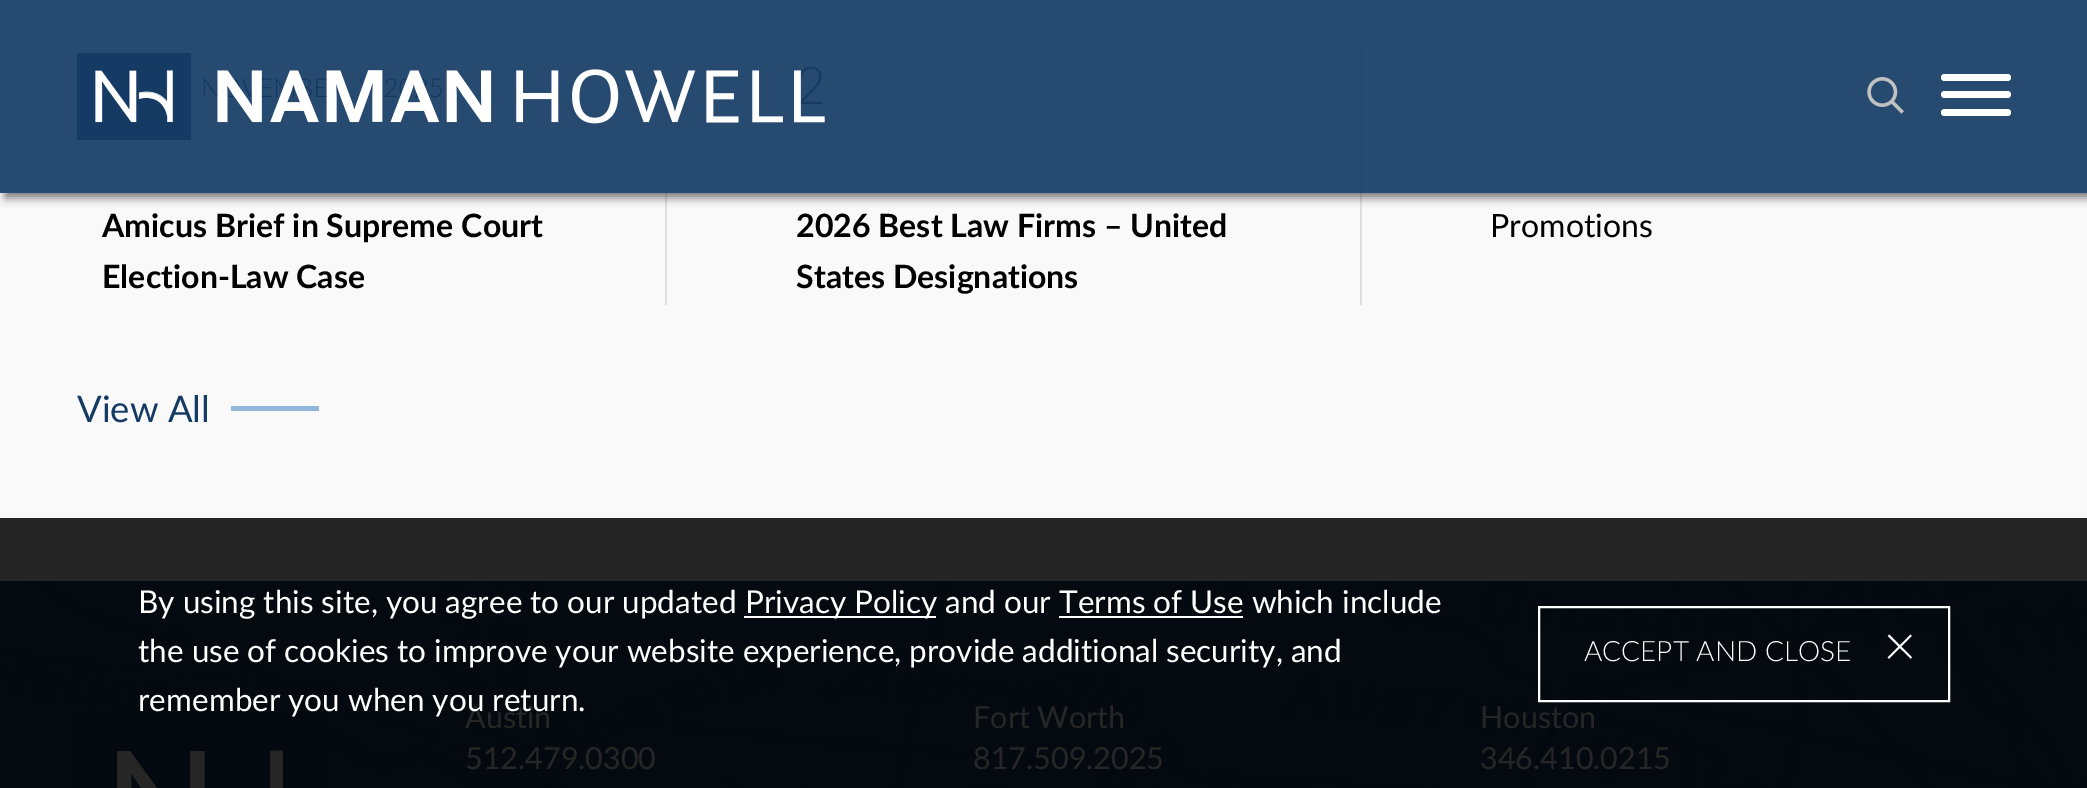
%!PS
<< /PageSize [2087 788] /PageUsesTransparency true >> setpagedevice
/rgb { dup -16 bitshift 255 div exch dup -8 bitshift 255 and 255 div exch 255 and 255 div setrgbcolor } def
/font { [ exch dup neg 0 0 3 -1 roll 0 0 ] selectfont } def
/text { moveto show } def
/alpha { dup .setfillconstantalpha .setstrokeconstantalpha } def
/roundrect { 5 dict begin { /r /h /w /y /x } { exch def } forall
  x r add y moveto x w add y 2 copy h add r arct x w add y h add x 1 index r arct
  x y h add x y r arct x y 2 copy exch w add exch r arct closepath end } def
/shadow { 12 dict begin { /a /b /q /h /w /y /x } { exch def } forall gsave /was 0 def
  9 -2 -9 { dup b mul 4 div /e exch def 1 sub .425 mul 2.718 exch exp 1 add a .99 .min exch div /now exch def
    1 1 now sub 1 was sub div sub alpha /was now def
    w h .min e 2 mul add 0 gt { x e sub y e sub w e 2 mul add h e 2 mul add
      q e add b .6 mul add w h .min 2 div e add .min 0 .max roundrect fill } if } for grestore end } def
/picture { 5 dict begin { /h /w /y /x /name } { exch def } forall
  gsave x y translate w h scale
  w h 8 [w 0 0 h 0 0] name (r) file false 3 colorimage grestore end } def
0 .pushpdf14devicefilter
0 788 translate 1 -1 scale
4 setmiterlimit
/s1 { /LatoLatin-Bold 32.1 font 16#000000 rgb } def
/s2 { /LatoLatin-Regular 32.1 font 16#000000 rgb } def
/s3 { /LatoLatin-Regular 36.5 font 16#153B65 rgb } def
/s4 { /LatoLatin-Regular 31.5 font 16#FFFFFF rgb } def
/s5 { /LatoLatin-Regular 30.5 font 16#262626 rgb } def
/s6 { /LatoLatin-Light 28 font 16#FFFFFF rgb } def
/s7 { /LatoLatin-Light 58 font 16#FFFFFF rgb } def
16#F9F9F9 rgb
0 0 2087 788 rectfill
16#DEDEDE rgb
665 42 2 263 rectfill
1360 42 2 263 rectfill
gsave
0 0 moveto 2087 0 lineto 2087 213 lineto 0 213 lineto closepath 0 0 moveto 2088 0 lineto 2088 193 lineto 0 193 lineto closepath eoclip newpath
16#000000 rgb
5 5 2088 193 0 4.5 0.5 shadow
grestore
0.92 alpha
16#153B65 rgb
0 0 2087 193 rectfill
1 alpha
(pic1.raw) 1867 77 37 37 picture
16#FFFFFF rgb
1941 74 70 7 3.5 roundrect fill
1941 91 70 7 3.5 roundrect fill
1941 109 70 7 3.5 roundrect fill
(pic2.raw) 77 53 748 87 picture
s1
(Amicus Brief in Supreme Court) 102 237 text
(Election-Law Case) 102 288 text
(2026 Best Law Firms – United) 796 237 text
(States Designations) 796 288 text
s2
(Promotions) 1490 237 text
s3
(View All) 77 422 text
16#90B6D9 rgb
231 406 88 5 rectfill
16#252525 rgb
0 518 2087 63 rectfill
(pic3.raw) 0 581 2087 207 picture
s4
(By using this site, you agree to our updated) 138 613 text
744 616 192 2 rectfill
(Privacy Policy and our Terms of Use which include) 745 613 text
1059 616 184 2 rectfill
(the use of cookies to improve your website experience, provide additional security, and) 138 662 text
(pic4.raw) 78 712 243 76 picture
s5
(Austin) 465 728 text
s4
(remember you when you return.) 138 711 text
2 setlinewidth
1539 607 410 94 rectstroke
s6
(ACCEPT AND CLOSE) 1584 661 text
s7
(×) 1883 666 text
s5
(512.479.0300) 465 769 text
(Fort Worth) 973 728 text
(817.509.2025) 973 769 text
(Houston) 1480 728 text
(346.410.0215) 1480 769 text
.poppdf14devicefilter showpage
